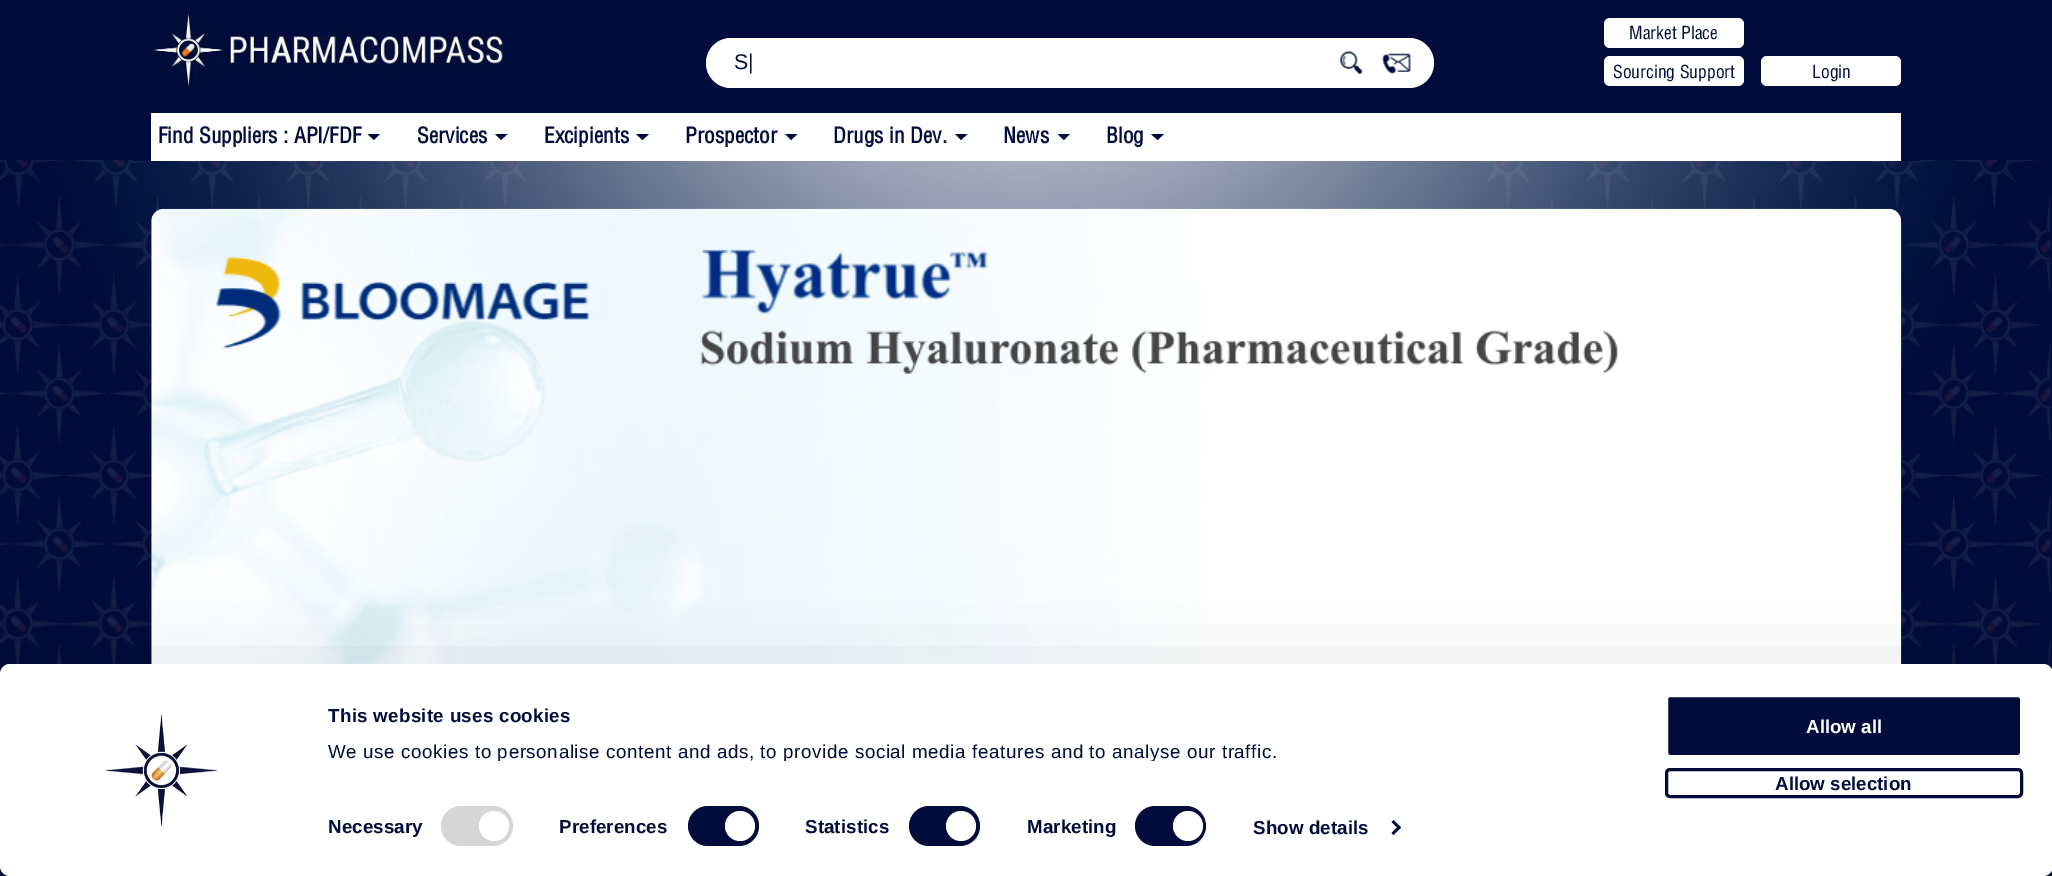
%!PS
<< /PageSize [2052 876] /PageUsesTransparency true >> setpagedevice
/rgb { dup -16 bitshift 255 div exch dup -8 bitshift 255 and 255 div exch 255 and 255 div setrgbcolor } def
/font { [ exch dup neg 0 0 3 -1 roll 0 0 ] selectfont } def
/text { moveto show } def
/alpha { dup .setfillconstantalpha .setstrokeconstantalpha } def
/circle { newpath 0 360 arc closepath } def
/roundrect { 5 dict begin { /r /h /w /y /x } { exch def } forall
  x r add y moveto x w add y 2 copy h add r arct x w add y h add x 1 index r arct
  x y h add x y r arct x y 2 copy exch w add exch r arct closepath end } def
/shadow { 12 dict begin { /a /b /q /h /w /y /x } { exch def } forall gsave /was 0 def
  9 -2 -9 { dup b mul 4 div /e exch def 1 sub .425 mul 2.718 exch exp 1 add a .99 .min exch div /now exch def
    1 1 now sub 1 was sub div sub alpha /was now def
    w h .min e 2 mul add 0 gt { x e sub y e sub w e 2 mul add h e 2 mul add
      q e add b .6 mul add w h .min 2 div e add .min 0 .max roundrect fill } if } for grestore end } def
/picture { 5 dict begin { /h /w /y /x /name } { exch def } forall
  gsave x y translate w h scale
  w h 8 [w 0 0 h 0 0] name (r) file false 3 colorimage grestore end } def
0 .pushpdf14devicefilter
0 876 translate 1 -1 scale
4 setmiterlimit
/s1 { /LiberationSans-Regular 21.25 font 16#000C3B rgb } def
/s2 { /Helvetica-Medium 17.5 font 16#000C3B rgb } def
/s3 { /Helvetica-Bold 21.25 font 16#000C3B rgb } def
/s4 { /LiberationSans-Bold 18.75 font 16#FFFFFF rgb } def
/s5 { /LiberationSans-Bold 18.75 font 16#000C3B rgb } def
16#000C3B rgb
0 0 2052 876 rectfill
(pic1.raw) 152 13 351 74 picture
16#FFFFFF rgb
706 38 728 50 25 roundrect fill
s1
(S|) 734 69 text
(pic2.raw) 1337 49 26 26 picture
(pic3.raw) 1381 51 31 23 picture
16#FFFFFF rgb
1604 18 140 30 6 roundrect fill
s2
(Market Place) 1629 39 text
16#FFFFFF rgb
1604 56 140 30 6 roundrect fill
s2
(Sourcing Support) 1613 78 text
16#FFFFFF rgb
1761 56 140 30 6 roundrect fill
s2
(Login) 1812 78 text
(pic4.raw) 0 160 2052 716 picture
133 160 1787 1 rectfill
16#FFFFFF rgb
151 113 1750 48 rectfill
s3
(Find Suppliers : API/FDF) 158 143 text
367.5 134 moveto 380 134 lineto 374 140 lineto closepath fill
(Services) 417 143 text
495 134 moveto 507.5 134 lineto 501 140 lineto closepath fill
(Excipients) 544 143 text
636 134 moveto 649 134 lineto 642.5 140 lineto closepath fill
(Prospector) 685 143 text
785 134 moveto 797.5 134 lineto 791 140 lineto closepath fill
(Drugs in Dev.) 833 143 text
955 134 moveto 967.5 134 lineto 961 140 lineto closepath fill
(News) 1003 143 text
1057.5 134 moveto 1070 134 lineto 1064 140 lineto closepath fill
(Blog) 1106 143 text
1151 134 moveto 1164 134 lineto 1157.5 140 lineto closepath fill
(pic5.raw) 151 208 1751 456 picture
16#000000 rgb
0 701 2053 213 10 44 0.3 shadow
16#FFFFFF rgb
0 664 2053 212 10 roundrect fill
(pic6.raw) 105 714 113 113 picture
/LiberationSans-Bold 18.75 font
16#000C3B rgb
328 722 moveto 0.3 0 (This website uses cookies) ashow
gsave
328 701 1302 60 rectclip
/LiberationSans-Regular 18.75 font
328 758 moveto 0.62 0 (We use cookies to personalise content and ads, to provide social media features and to analyse our traffic.) ashow
grestore
16#E5E5E5 rgb
326 795 1 1 rectfill
16#000C3B rgb
328 833 moveto 0.1 0 (Necessary) ashow
16#D6D6D6 rgb
441 806 72 40 20 roundrect fill
16#FFFFFF rgb
494 826 15 circle fill
16#000C3B rgb
559 833 moveto 0.1 0 (Preferences) ashow
688 806 71 40 20 roundrect fill
16#FFFFFF rgb
740 826 15 circle fill
16#000C3B rgb
805 833 moveto 0.1 0 (Statistics) ashow
909 806 71 40 20 roundrect fill
16#FFFFFF rgb
961 826 15 circle fill
16#000C3B rgb
1027 833 moveto 0.1 0 (Marketing) ashow
1135 806 71 40 20 roundrect fill
16#FFFFFF rgb
1188 826 15 circle fill
16#000C3B rgb
1253 834 moveto 0.1 0 (Show details) ashow
1393.5 820 moveto 1401 827.5 lineto 1399 829.5 lineto 1391.5 822 lineto closepath fill
1399 825.5 moveto 1401 827.5 lineto 1393.5 835 lineto 1391.5 833 lineto closepath fill
1666.5 695.5 355 61 3.5 roundrect gsave fill grestore
16#FFFFFF rgb
3 setlinewidth
stroke
(Allow all) 1806 733 text
16#000C3B rgb
1666.5 769.5 355 27 3.5 roundrect stroke
(Allow selection) 1775 790 text
.poppdf14devicefilter showpage
